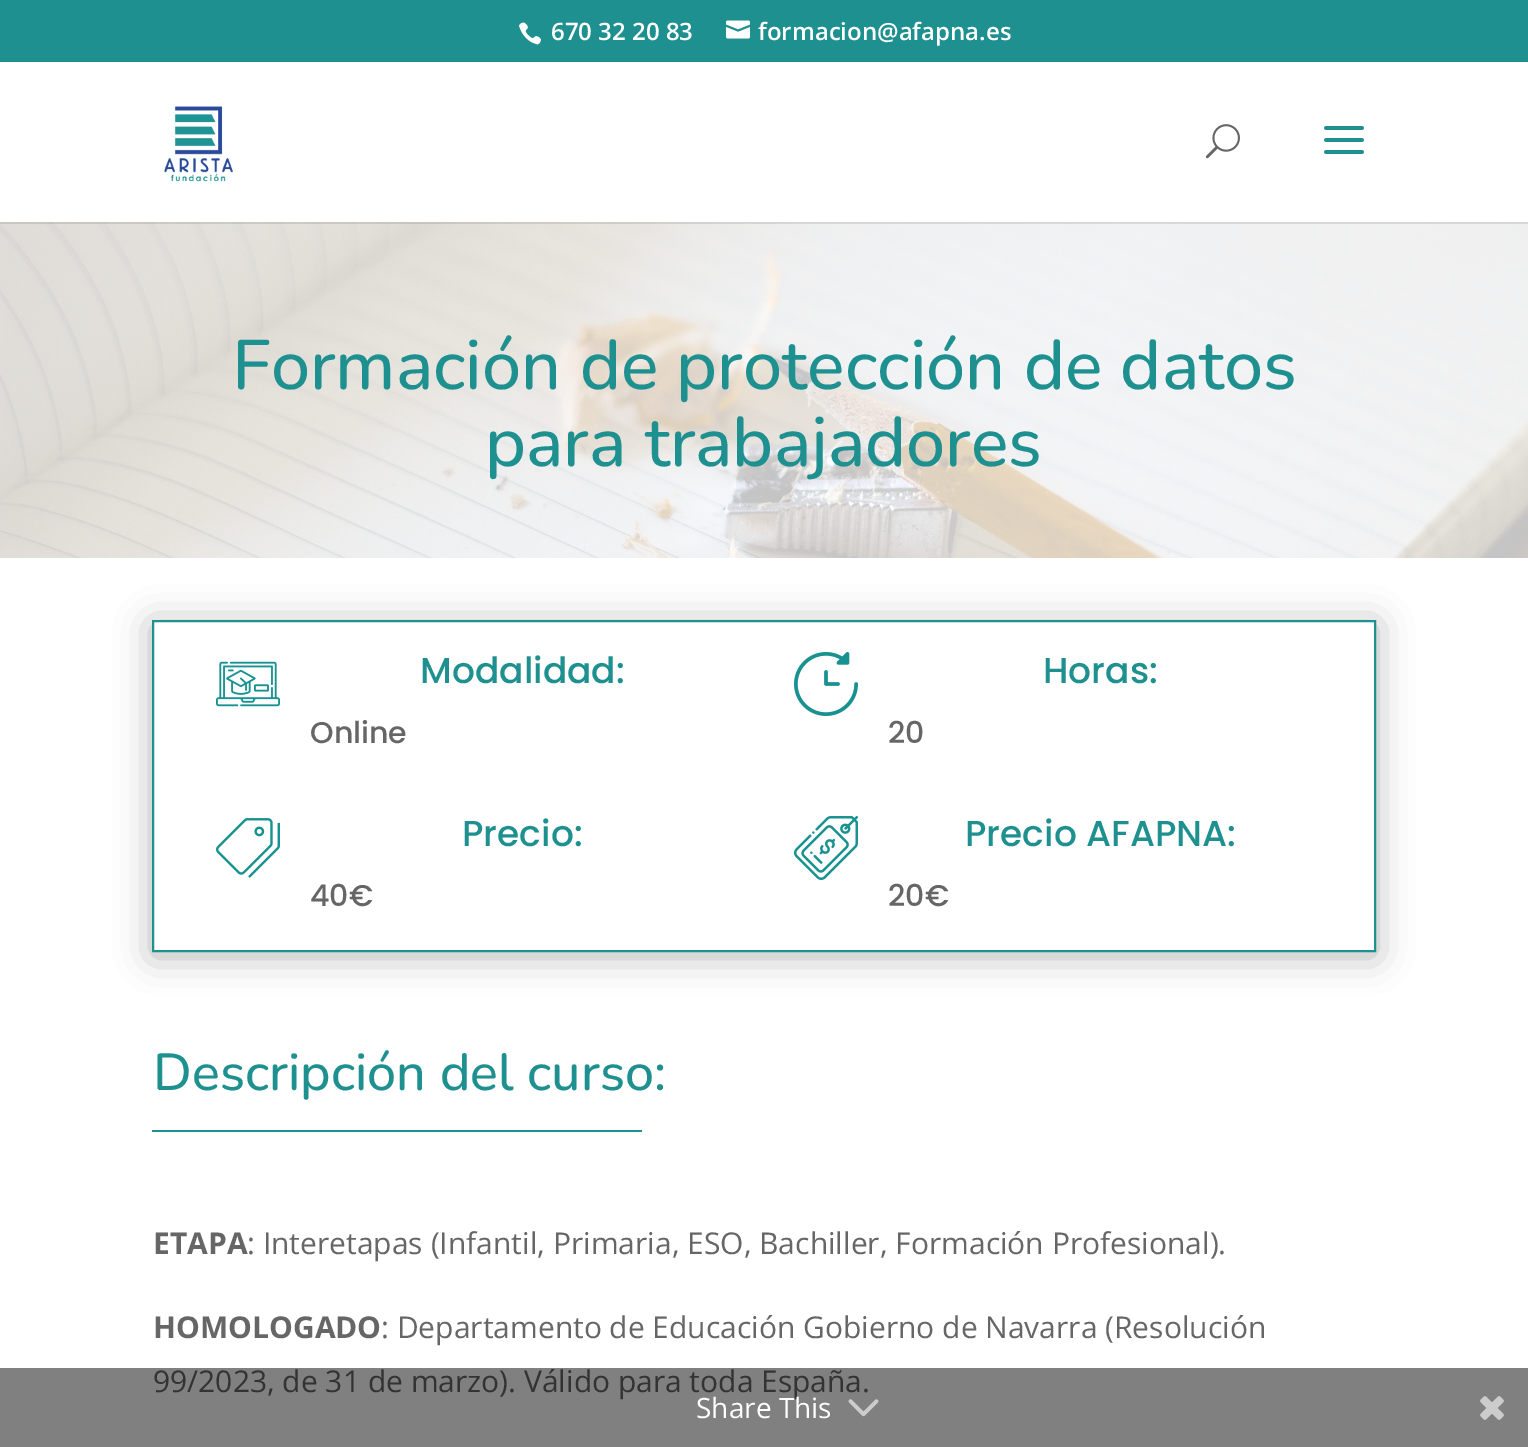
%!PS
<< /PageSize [1528 1447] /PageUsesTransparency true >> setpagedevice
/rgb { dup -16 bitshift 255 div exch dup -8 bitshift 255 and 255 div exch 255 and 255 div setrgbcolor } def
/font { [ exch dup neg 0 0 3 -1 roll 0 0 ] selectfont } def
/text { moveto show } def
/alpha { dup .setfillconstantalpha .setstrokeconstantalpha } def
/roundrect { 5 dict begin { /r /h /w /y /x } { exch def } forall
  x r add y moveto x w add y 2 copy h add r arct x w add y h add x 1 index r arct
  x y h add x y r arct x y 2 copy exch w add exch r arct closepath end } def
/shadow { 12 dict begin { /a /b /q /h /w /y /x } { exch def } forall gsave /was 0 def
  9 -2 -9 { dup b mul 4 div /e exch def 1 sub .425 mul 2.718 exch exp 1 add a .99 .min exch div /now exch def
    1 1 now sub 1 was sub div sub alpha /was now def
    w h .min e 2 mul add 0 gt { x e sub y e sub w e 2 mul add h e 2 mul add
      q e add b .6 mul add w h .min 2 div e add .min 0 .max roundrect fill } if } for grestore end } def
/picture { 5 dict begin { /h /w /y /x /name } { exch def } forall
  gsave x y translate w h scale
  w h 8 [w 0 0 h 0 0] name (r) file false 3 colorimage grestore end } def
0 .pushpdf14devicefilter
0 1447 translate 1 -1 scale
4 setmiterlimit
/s1 { /OpenSans-SemiBold 24 font 16#FFFFFF rgb } def
/s2 { /Nunito-Medium 70 font 16#1F9090 rgb } def
/s3 { /Poppins-Medium 36 font 16#1F9090 rgb } def
/s4 { /Poppins-Medium 30 font 16#666666 rgb } def
/s5 { /Nunito-Medium 52 font 16#1F9090 rgb } def
/s6 { /OpenSans-Bold 30 font 16#666666 rgb } def
/s7 { /OpenSans-Regular 30 font 16#666666 rgb } def
/s8 { /OpenSans-Regular 30 font 16#333333 rgb } def
/s9 { /OpenSans-Regular 28 font 16#FFFFFF rgb } def
16#FFFFFF rgb
0 0 1528 1447 rectfill
16#1F9090 rgb
0 0 1528 62 rectfill
(pic1.raw) 519 22 22 23 picture
s1
(670 32 20 83) 551 40 text
(pic2.raw) 726 20 24 19 picture
(formacion@afapna.es) 758 40 text
(pic6.raw) 0 222 1528 336 picture
0.1 alpha
16#000000 rgb
0 222 1528 2 rectfill
1 alpha
(pic3.raw) 164 106 69 76 picture
(pic4.raw) 1205 124 35 35 picture
(pic5.raw) 1324 126 40 28 picture
s2
(Formación de protección de datos) 232 389 text
(para trabajadores) 485 466 text
16#808080 rgb
0 1368 1528 79 rectfill
gsave
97 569 moveto 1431 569 lineto 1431 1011 lineto 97 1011 lineto closepath 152 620 moveto 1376 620 lineto 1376 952 lineto 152 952 lineto closepath eoclip newpath
16#000000 rgb
152 624 1224 332 0 18 0.3 shadow
grestore
16#1F9090 rgb
2 setlinewidth
153 621 1222 330 rectstroke
(pic7.raw) 216 661 64 46 picture
s3
(Modalidad:) 420 683 text
s4
(Online) 310 743 text
(pic8.raw) 794 652 64 64 picture
s3
(Horas:) 1043 683 text
s4
(20) 888 743 text
(pic9.raw) 216 818 64 60 picture
s3
(Precio:) 462 846 text
s4
(40€) 310 906 text
(pic10.raw) 794 816 64 64 picture
s3
(Precio AFAPNA:) 965 846 text
s4
(20€) 888 906 text
s5
(Descripción del curso:) 153 1090 text
152 1130 490 2 rectfill
s6
(ETAPA) 153 1254 text
s7
(: Interetapas \(Infantil, Primaria, ESO, Bachiller, Formación Profesional\).) 247 1254 text
s6
(HOMOLOGADO) 153 1338 text
s7
(: Departamento de Educación Gobierno de Navarra \(Resolución) 381 1338 text
s8
(99/2023, de 31 de marzo\). Válido para toda España.) 153 1392 text
s9
(Share This) 696 1418 text
(pic11.raw) 848 1399 31 18 picture
(pic12.raw) 1480 1396 24 24 picture
.poppdf14devicefilter showpage
